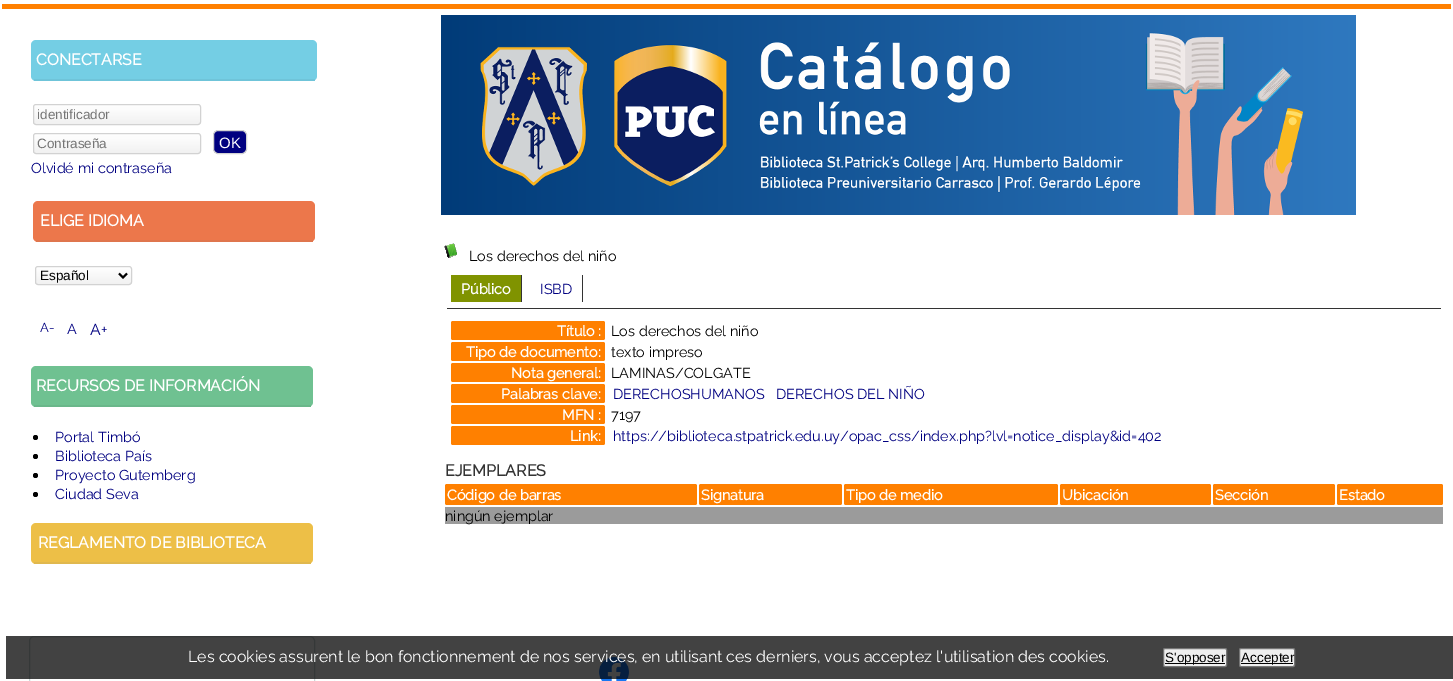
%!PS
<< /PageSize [1453 681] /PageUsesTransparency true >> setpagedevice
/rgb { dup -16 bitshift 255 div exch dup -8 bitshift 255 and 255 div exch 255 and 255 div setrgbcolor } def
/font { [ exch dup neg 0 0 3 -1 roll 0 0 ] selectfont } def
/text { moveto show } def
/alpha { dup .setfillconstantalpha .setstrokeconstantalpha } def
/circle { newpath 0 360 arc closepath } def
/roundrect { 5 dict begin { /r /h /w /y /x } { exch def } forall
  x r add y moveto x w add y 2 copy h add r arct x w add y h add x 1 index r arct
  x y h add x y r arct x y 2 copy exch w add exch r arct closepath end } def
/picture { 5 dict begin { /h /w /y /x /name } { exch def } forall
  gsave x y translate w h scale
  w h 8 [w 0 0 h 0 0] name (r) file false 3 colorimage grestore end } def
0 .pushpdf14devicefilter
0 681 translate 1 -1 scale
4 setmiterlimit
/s1 { /Raleway-Bold 15.8 font 16#FFFFFF rgb } def
/s2 { /LiberationSans-Regular 13.5 font 16#757575 rgb } def
/s3 { /LiberationSans-Regular 15 font 16#FFFFFF rgb } def
/s4 { /Raleway-Thin 14.4 font 16#000080 rgb } def
/s5 { /LiberationSans-Regular 13.5 font 16#000000 rgb } def
/s6 { /Raleway-Thin 13 font 16#000080 rgb } def
/s7 { /Raleway-Thin 15.8 font 16#000080 rgb } def
/s8 { /Raleway-Thin 14.4 font 16#000000 rgb } def
/s9 { /Raleway-Bold 14.4 font 16#FFFFFF rgb } def
/s10 { /Raleway-Bold 16 font 16#333333 rgb } def
/s11 { /Raleway-Thin 16 font 16#FFFFFF rgb } def
16#FFFFFF rgb
0 0 1453 681 rectfill
16#FF8000 rgb
2 4 1449 5 rectfill
16#74CEE4 rgb
31 40 286 41 5 roundrect fill
16#6FC4D9 rgb
34 79 281 2 rectfill
s1
(CONECTARSE) 36 65 text
gsave
33 104 168 21 3 roundrect clip newpath
gsave 33 105 moveto 201 105 lineto 201 124 lineto 33 124 lineto closepath clip newpath
<< /ShadingType 2 /ColorSpace /DeviceRGB /Coords [117 105 117 124] /Extend [true true] /Function << /FunctionType 3 /Domain [0 1] /Functions [<< /FunctionType 2 /Domain [0 1] /C0 [1 1 1] /C1 [1 1 1] /N 1 >> << /FunctionType 2 /Domain [0 1] /C0 [1 1 1] /C1 [0.945 0.945 0.945] /N 1 >>] /Bounds [0.01] /Encode [0 1 0 1] >> >> shfill grestore
grestore
16#D2D2D2 rgb
33.5 104.5 167 20 2.5 roundrect stroke
s2
(identificador) 37 119 text
gsave
33 133 168 21 3 roundrect clip newpath
gsave 33 134 moveto 201 134 lineto 201 153 lineto 33 153 lineto closepath clip newpath
<< /ShadingType 2 /ColorSpace /DeviceRGB /Coords [117 134 117 153] /Extend [true true] /Function << /FunctionType 3 /Domain [0 1] /Functions [<< /FunctionType 2 /Domain [0 1] /C0 [1 1 1] /C1 [1 1 1] /N 1 >> << /FunctionType 2 /Domain [0 1] /C0 [1 1 1] /C1 [0.945 0.945 0.945] /N 1 >>] /Bounds [0.01] /Encode [0 1 0 1] >> >> shfill grestore
grestore
16#D2D2D2 rgb
33.5 133.5 167 20 2.5 roundrect stroke
s2
(Contraseña) 37 148 text
16#000080 rgb
213.5 130.5 33 23 4.5 roundrect gsave fill grestore
16#D2D2D2 rgb
stroke
s3
(OK) 219 148 text
s4
(Olvidé mi contraseña) 31 173 text
16#EC774B rgb
33 201 282 41 5 roundrect fill
16#DF764E rgb
36 240 277 2 rectfill
s1
(ELIGE IDIOMA) 40 226 text
gsave
35 266 97 19 3 roundrect clip newpath
gsave 35 267 moveto 132 267 lineto 132 284 lineto 35 284 lineto closepath clip newpath
<< /ShadingType 2 /ColorSpace /DeviceRGB /Coords [84 267 84 284] /Extend [true true] /Function << /FunctionType 3 /Domain [0 1] /Functions [<< /FunctionType 2 /Domain [0 1] /C0 [1 1 1] /C1 [1 1 1] /N 1 >> << /FunctionType 2 /Domain [0 1] /C0 [1 1 1] /C1 [0.945 0.945 0.945] /N 1 >>] /Bounds [0.01] /Encode [0 1 0 1] >> >> shfill grestore
grestore
16#D2D2D2 rgb
35.5 266.5 96 18 2.5 roundrect stroke
16#000000 rgb
2 setlinewidth
119 273.5 moveto 123 277.5 lineto 127 273.5 lineto stroke
s5
(Español) 40 280 text
s6
(A-) 40 332 text
s4
(A) 67 334 text
s7
(A+) 90 335 text
16#6FC191 rgb
31 366 282 41 5 roundrect fill
16#6AB78A rgb
34 405 277 2 rectfill
s1
(RECURSOS DE INFORMACIÓN) 36 391 text
16#000000 rgb
35.5 437.5 2.5 circle fill
s4
(Portal Timbó) 55 442 text
16#000000 rgb
35.5 456.5 2.5 circle fill
s4
(Biblioteca País) 55 461 text
16#000000 rgb
35.5 475.5 2.5 circle fill
s4
(Proyecto Gutemberg) 55 480 text
16#000000 rgb
35.5 494.5 2.5 circle fill
s4
(Ciudad Seva) 55 499 text
16#EDBF47 rgb
31 523 282 41 5 roundrect fill
16#E0B84E rgb
34 562 277 2 rectfill
s1
(REGLAMENTO DE BIBLIOTECA) 38 548 text
16#CCD9D9 rgb
1 setlinewidth
29.5 636.5 285 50 4.5 roundrect stroke
(pic1.raw) 441 15 915 200 picture
(pic2.raw) 444 243 13 15 picture
s8
(Los derechos del niño) 469 261 text
16#333333 rgb
447 308 994 1 rectfill
16#809300 rgb
451 275 70 27 rectfill
s9
(Público) 461 294 text
16#333333 rgb
521 275 1 27 rectfill
s4
(ISBD) 540 294 text
16#333333 rgb
582 275 1 27 rectfill
16#FF8000 rgb
451 321 154 19 2 roundrect fill
s9
(Título :) 557 336 text
s8
(Los derechos del niño) 611 336 text
16#FF8000 rgb
451 342 154 19 2 roundrect fill
s9
(Tipo de documento:) 466 357 text
s8
(texto impreso) 611 357 text
16#FF8000 rgb
451 363 154 19 2 roundrect fill
s9
(Nota general:) 511 378 text
s8
(LAMINAS/COLGATE) 611 378 text
16#FF8000 rgb
451 384 154 19 2 roundrect fill
s9
(Palabras clave:) 501 399 text
s4
(DERECHOSHUMANOS) 613 399 text
(DERECHOS DEL NIÑO) 776 399 text
16#FF8000 rgb
451 405 154 19 2 roundrect fill
s9
(MFN :) 562 420 text
s8
(7197) 611 420 text
16#FF8000 rgb
451 426 154 19 2 roundrect fill
s9
(Link:) 570 441 text
s4
(https://biblioteca.stpatrick.edu.uy/opac_css/index.php?lvl=notice_display&id=402) 613 441 text
s10
(EJEMPLARES) 445 476 text
16#FF8000 rgb
445 484 252 21 2 roundrect fill
s9
(Código de barras) 447 500 text
16#FF8000 rgb
699 484 143 21 2 roundrect fill
s9
(Signatura) 701 500 text
16#FF8000 rgb
844 484 214 21 2 roundrect fill
s9
(Tipo de medio) 846 500 text
16#FF8000 rgb
1060 484 151 21 2 roundrect fill
s9
(Ubicación) 1062 500 text
16#FF8000 rgb
1213 484 122 21 2 roundrect fill
s9
(Sección) 1215 500 text
16#FF8000 rgb
1337 484 106 21 2 roundrect fill
s9
(Estado) 1339 500 text
16#9B9B9B rgb
445 507 998 17 rectfill
s8
(ningún ejemplar) 445 521 text
(pic3.raw) 599 657 30 24 picture
0.74 alpha
6 636 1447 43 rectfill
1 alpha
s11
(Les cookies assurent le bon fonctionnement de nos services, en utilisant ces derniers, vous acceptez l'utilisation des cookies.) 188 662 text
16#EFEFEF rgb
1163.5 648.5 63 18 1.5 roundrect gsave fill grestore
16#767676 rgb
stroke
16#000000 rgb
1165 663 60 1 rectfill
s5
(S'opposer) 1165 662 text
16#EFEFEF rgb
1239.5 648.5 55 18 1.5 roundrect gsave fill grestore
16#767676 rgb
stroke
16#000000 rgb
1241 663 52 1 rectfill
(Accepter) 1241 662 text
.poppdf14devicefilter showpage
